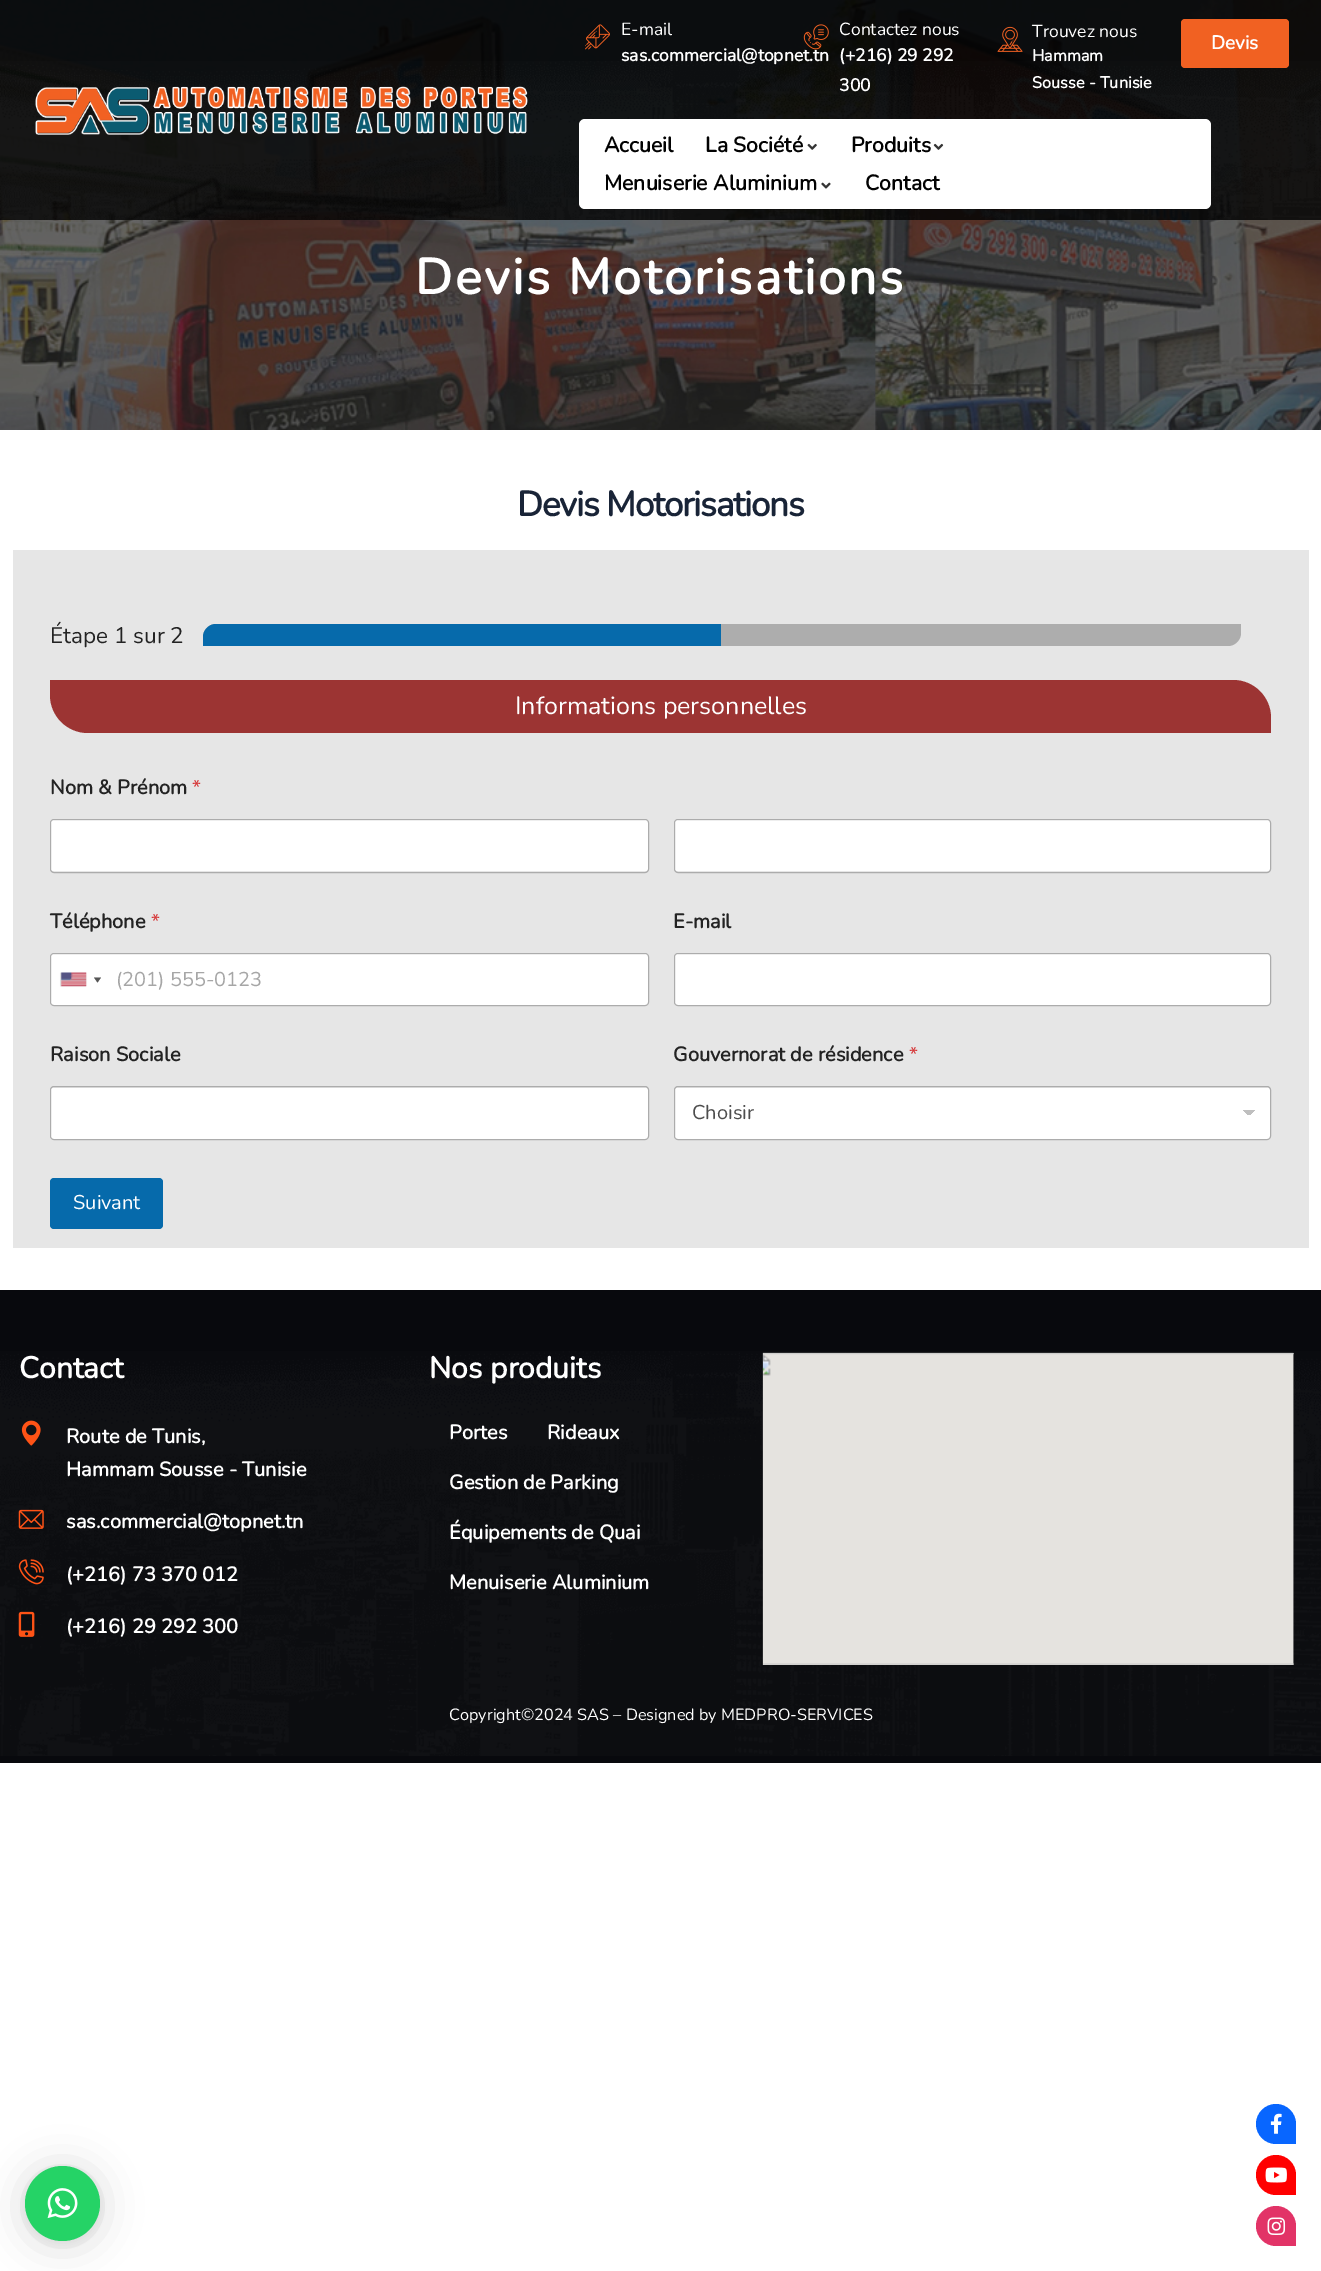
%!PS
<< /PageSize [1321 2271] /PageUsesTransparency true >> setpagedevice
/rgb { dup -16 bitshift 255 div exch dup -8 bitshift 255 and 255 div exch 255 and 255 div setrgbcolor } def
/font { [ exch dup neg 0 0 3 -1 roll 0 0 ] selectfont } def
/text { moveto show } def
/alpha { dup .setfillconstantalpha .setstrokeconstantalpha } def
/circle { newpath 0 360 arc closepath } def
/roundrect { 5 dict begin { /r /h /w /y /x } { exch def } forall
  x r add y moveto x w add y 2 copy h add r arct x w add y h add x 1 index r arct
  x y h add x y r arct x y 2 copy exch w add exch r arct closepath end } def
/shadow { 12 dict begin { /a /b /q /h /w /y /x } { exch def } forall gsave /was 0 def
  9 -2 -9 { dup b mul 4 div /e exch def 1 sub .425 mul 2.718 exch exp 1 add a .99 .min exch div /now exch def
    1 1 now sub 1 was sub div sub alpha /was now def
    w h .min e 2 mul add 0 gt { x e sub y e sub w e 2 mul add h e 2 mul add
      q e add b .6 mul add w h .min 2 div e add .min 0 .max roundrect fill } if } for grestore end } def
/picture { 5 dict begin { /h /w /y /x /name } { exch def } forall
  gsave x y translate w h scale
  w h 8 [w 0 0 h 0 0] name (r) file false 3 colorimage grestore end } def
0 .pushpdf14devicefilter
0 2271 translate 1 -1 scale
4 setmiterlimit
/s1 { /Nunito-ExtraLight 17.5 font 16#FFFFFF rgb } def
/s2 { /Nunito-Bold 17.5 font 16#FFFFFF rgb } def
/s3 { /Nunito-Bold 16.25 font 16#FFFFFF rgb } def
/s4 { /Nunito-Bold 19 font 16#FFFFFF rgb } def
/s5 { /Nunito-Bold 21.25 font 16#020202 rgb } def
/s6 { /Nunito-ExtraLight 22.5 font 16#232323 rgb } def
/s7 { /Nunito-ExtraLight 25 font 16#FFFFFF rgb } def
/s8 { /Nunito-Bold 20 font 16#232323 rgb } def
/s9 { /Nunito-ExtraLight 20 font 16#D63637 rgb } def
/s10 { /Nunito-ExtraLight 20 font 16#A6A6A6 rgb } def
/s11 { /Nunito-ExtraLight 20 font 16#4D4D4D rgb } def
/s12 { /Nunito-ExtraLight 20 font 16#FFFFFF rgb } def
/s13 { /Nunito-Bold 30 font 16#FFFFFF rgb } def
/s14 { /Nunito-Bold 20 font 16#FFFFFF rgb } def
/s15 { /Nunito-ExtraLight 16.25 font 16#FFFFFF rgb } def
16#FFFFFF rgb
0 0 1321 2271 rectfill
(pic9.raw) 0 0 1321 430 picture
0.85 alpha
16#000000 rgb
0 0 1321 220 rectfill
1 alpha
(pic1.raw) 0 61 1321 159 picture
(pic2.raw) 35 86 493 49 picture
(pic3.raw) 585 24 25 26 picture
s1
(E-mail) 621 35 text
s2
(sas.commercial@topnet.tn) 621 61 text
(pic4.raw) 803 24 26 26 picture
s1
(Contactez nous) 839 35 text
s2
(\(+216\) 29 292) 839 61 text
(300) 839 91 text
(pic5.raw) 997 26 26 26 picture
s1
(Trouvez nous) 1032 37 text
s3
(Hammam) 1032 61 text
(Sousse - Tunisie) 1032 88 text
16#F16122 rgb
1181 19 108 49 4 roundrect fill
s4
(Devis) 1211 49 text
579 119 632 90 6 roundrect fill
s5
(Accueil) 604 152 text
(La Société) 705 152 text
(pic6.raw) 807 143 10 7 picture
(Produits) 851 152 text
(pic7.raw) 933 143 11 7 picture
(Menuiserie Aluminium) 604 190 text
(pic8.raw) 821 182 10 7 picture
(Contact) 865 190 text
/Nunito-Bold 50 font
16#FFFFFF rgb
415 294 moveto 2.5 0 (Devis Motorisations) ashow
/Nunito-Bold 35 font
16#192437 rgb
517 516 moveto -1.25 0 (Devis Motorisations) ashow
16#E6E6E6 rgb
13 550 1296 698 rectfill
s6
(Étape 1 sur 2) 50 643 text
16#ADADAD rgb
216 624 moveto 1241 624 lineto 1241 633 lineto 1241 640 1235 646 1228 646 curveto 203 646 lineto 203 637 lineto 203 630 209 624 216 624 curveto closepath fill
16#066AAB rgb
216 624 moveto 721 624 lineto 721 646 lineto 203 646 lineto 203 637 lineto 203 630 209 624 216 624 curveto closepath fill
16#9C3433 rgb
50 680 moveto 1233 680 lineto 1254 680 1271 697 1271 718 curveto 1271 733 lineto 88 733 lineto 67 733 50 716 50 695 curveto closepath fill
s7
(Informations personnelles) 515 714 text
s8
(Nom & Prénom) 50 794 text
s9
(*) 192 794 text
16#FFFFFF rgb
51 820 597 51 2.5 roundrect fill
0.25 alpha
16#000000 rgb
50.5 819.5 598 53 3.5 roundrect stroke
1 alpha
16#FFFFFF rgb
675 820 595 51 2.5 roundrect fill
0.25 alpha
16#000000 rgb
674.5 819.5 596 53 3.5 roundrect stroke
1 alpha
s8
(Téléphone) 50 928 text
s9
(*) 151 928 text
16#FFFFFF rgb
51 954 597 51 2.5 roundrect fill
0.25 alpha
16#000000 rgb
50.5 953.5 598 52 3.5 roundrect stroke
1 alpha
16#888888 rgb
61 973 25 13 0 0.5 1 shadow
(pic10.raw) 61 972 26 15 picture
16#555555 rgb
94 977.5 moveto 101 977.5 lineto 97.5 982.5 lineto closepath fill
s10
(\(201\) 555-0123) 116 986 text
s8
(E-mail) 673 928 text
16#FFFFFF rgb
675 954 595 51 2.5 roundrect fill
0.25 alpha
16#000000 rgb
674.5 953.5 596 52 3.5 roundrect stroke
1 alpha
s8
(Raison Sociale) 50 1061 text
16#FFFFFF rgb
51 1088 597 51 2.5 roundrect fill
0.25 alpha
16#000000 rgb
50.5 1086.5 598 53 3.5 roundrect stroke
1 alpha
s8
(Gouvernorat de résidence) 673 1061 text
s9
(*) 909 1061 text
16#FFFFFF rgb
675 1088 595 51 2.5 roundrect fill
gsave 1249 1110 moveto 1255 1110 lineto 1255 1115 lineto 1249 1115 lineto closepath clip newpath
<< /ShadingType 2 /ColorSpace /DeviceRGB /Coords [1249 1110 1255 1116] /Extend [true true] /Function << /FunctionType 3 /Domain [0 1] /Functions [<< /FunctionType 2 /Domain [0 1] /C0 [0.749 0.749 0.749] /C1 [0.749 0.749 0.749] /N 1 >> << /FunctionType 2 /Domain [0 1] /C0 [1 1 1] /C1 [1 1 1] /N 1 >>] /Bounds [0.5] /Encode [0 1 0 1] >> >> shfill grestore
gsave 1243 1110 moveto 1249 1110 lineto 1249 1115 lineto 1243 1115 lineto closepath clip newpath
<< /ShadingType 2 /ColorSpace /DeviceRGB /Coords [1243 1116 1249 1110] /Extend [true true] /Function << /FunctionType 3 /Domain [0 1] /Functions [<< /FunctionType 2 /Domain [0 1] /C0 [1 1 1] /C1 [1 1 1] /N 1 >> << /FunctionType 2 /Domain [0 1] /C0 [0.749 0.749 0.749] /C1 [0.749 0.749 0.749] /N 1 >>] /Bounds [0.5] /Encode [0 1 0 1] >> >> shfill grestore
0.25 alpha
16#000000 rgb
674.5 1086.5 596 53 3.5 roundrect stroke
1 alpha
s11
(Choisir) 692 1119 text
16#066AAB rgb
50 1178 113 51 4 roundrect fill
s12
(Suivant) 73 1209 text
16#08090D rgb
0 1290 1321 473 rectfill
(pic11.raw) 0 1351 1321 405 picture
s13
(Contact) 19 1378 text
(pic12.raw) 21 1420 20 26 picture
s14
(Route de Tunis,) 66 1443 text
(Hammam Sousse - Tunisie) 66 1476 text
(pic13.raw) 18 1509 26 20 picture
(sas.commercial@topnet.tn) 66 1528 text
(pic14.raw) 18 1559 26 26 picture
(\(+216\) 73 370 012) 66 1581 text
(pic15.raw) 18 1611 17 26 picture
(\(+216\) 29 292 300) 66 1633 text
s13
(Nos produits) 429 1378 text
s14
(Portes) 449 1439 text
(Rideaux) 547 1439 text
(Gestion de Parking) 449 1489 text
(Équipements de Quai) 449 1539 text
(Menuiserie Aluminium) 449 1589 text
(pic16.raw) 762 1352 532 313 picture
s15
(Copyright©2024 SAS – Designed by MEDPRO-SERVICES) 449 1720 text
16#000000 rgb
25 2169 75 75 37.5 20 0.16 shadow
25 2168 75 75 37.5 4 0.06 shadow
16#25D366 rgb
62.5 2203.5 37.5 circle fill
(pic17.raw) 47 2188 31 31 picture
16#0866FF rgb
1276 2104 moveto 1287 2104 1296 2113 1296 2124 curveto 1296 2144 lineto 1276 2144 lineto 1265 2144 1256 2135 1256 2124 curveto 1256 2113 1265 2104 1276 2104 curveto closepath fill
(pic18.raw) 1270 2113 12 21 picture
16#FF0000 rgb
1276 2155 moveto 1287 2155 1296 2164 1296 2175 curveto 1296 2195 lineto 1276 2195 lineto 1265 2195 1256 2186 1256 2175 curveto 1256 2164 1265 2155 1276 2155 curveto closepath fill
(pic19.raw) 1265 2167 22 16 picture
16#E23367 rgb
1276 2206 moveto 1287 2206 1296 2215 1296 2226 curveto 1296 2246 lineto 1276 2246 lineto 1265 2246 1256 2237 1256 2226 curveto 1256 2215 1265 2206 1276 2206 curveto closepath fill
(pic20.raw) 1267 2217 19 18 picture
.poppdf14devicefilter showpage
